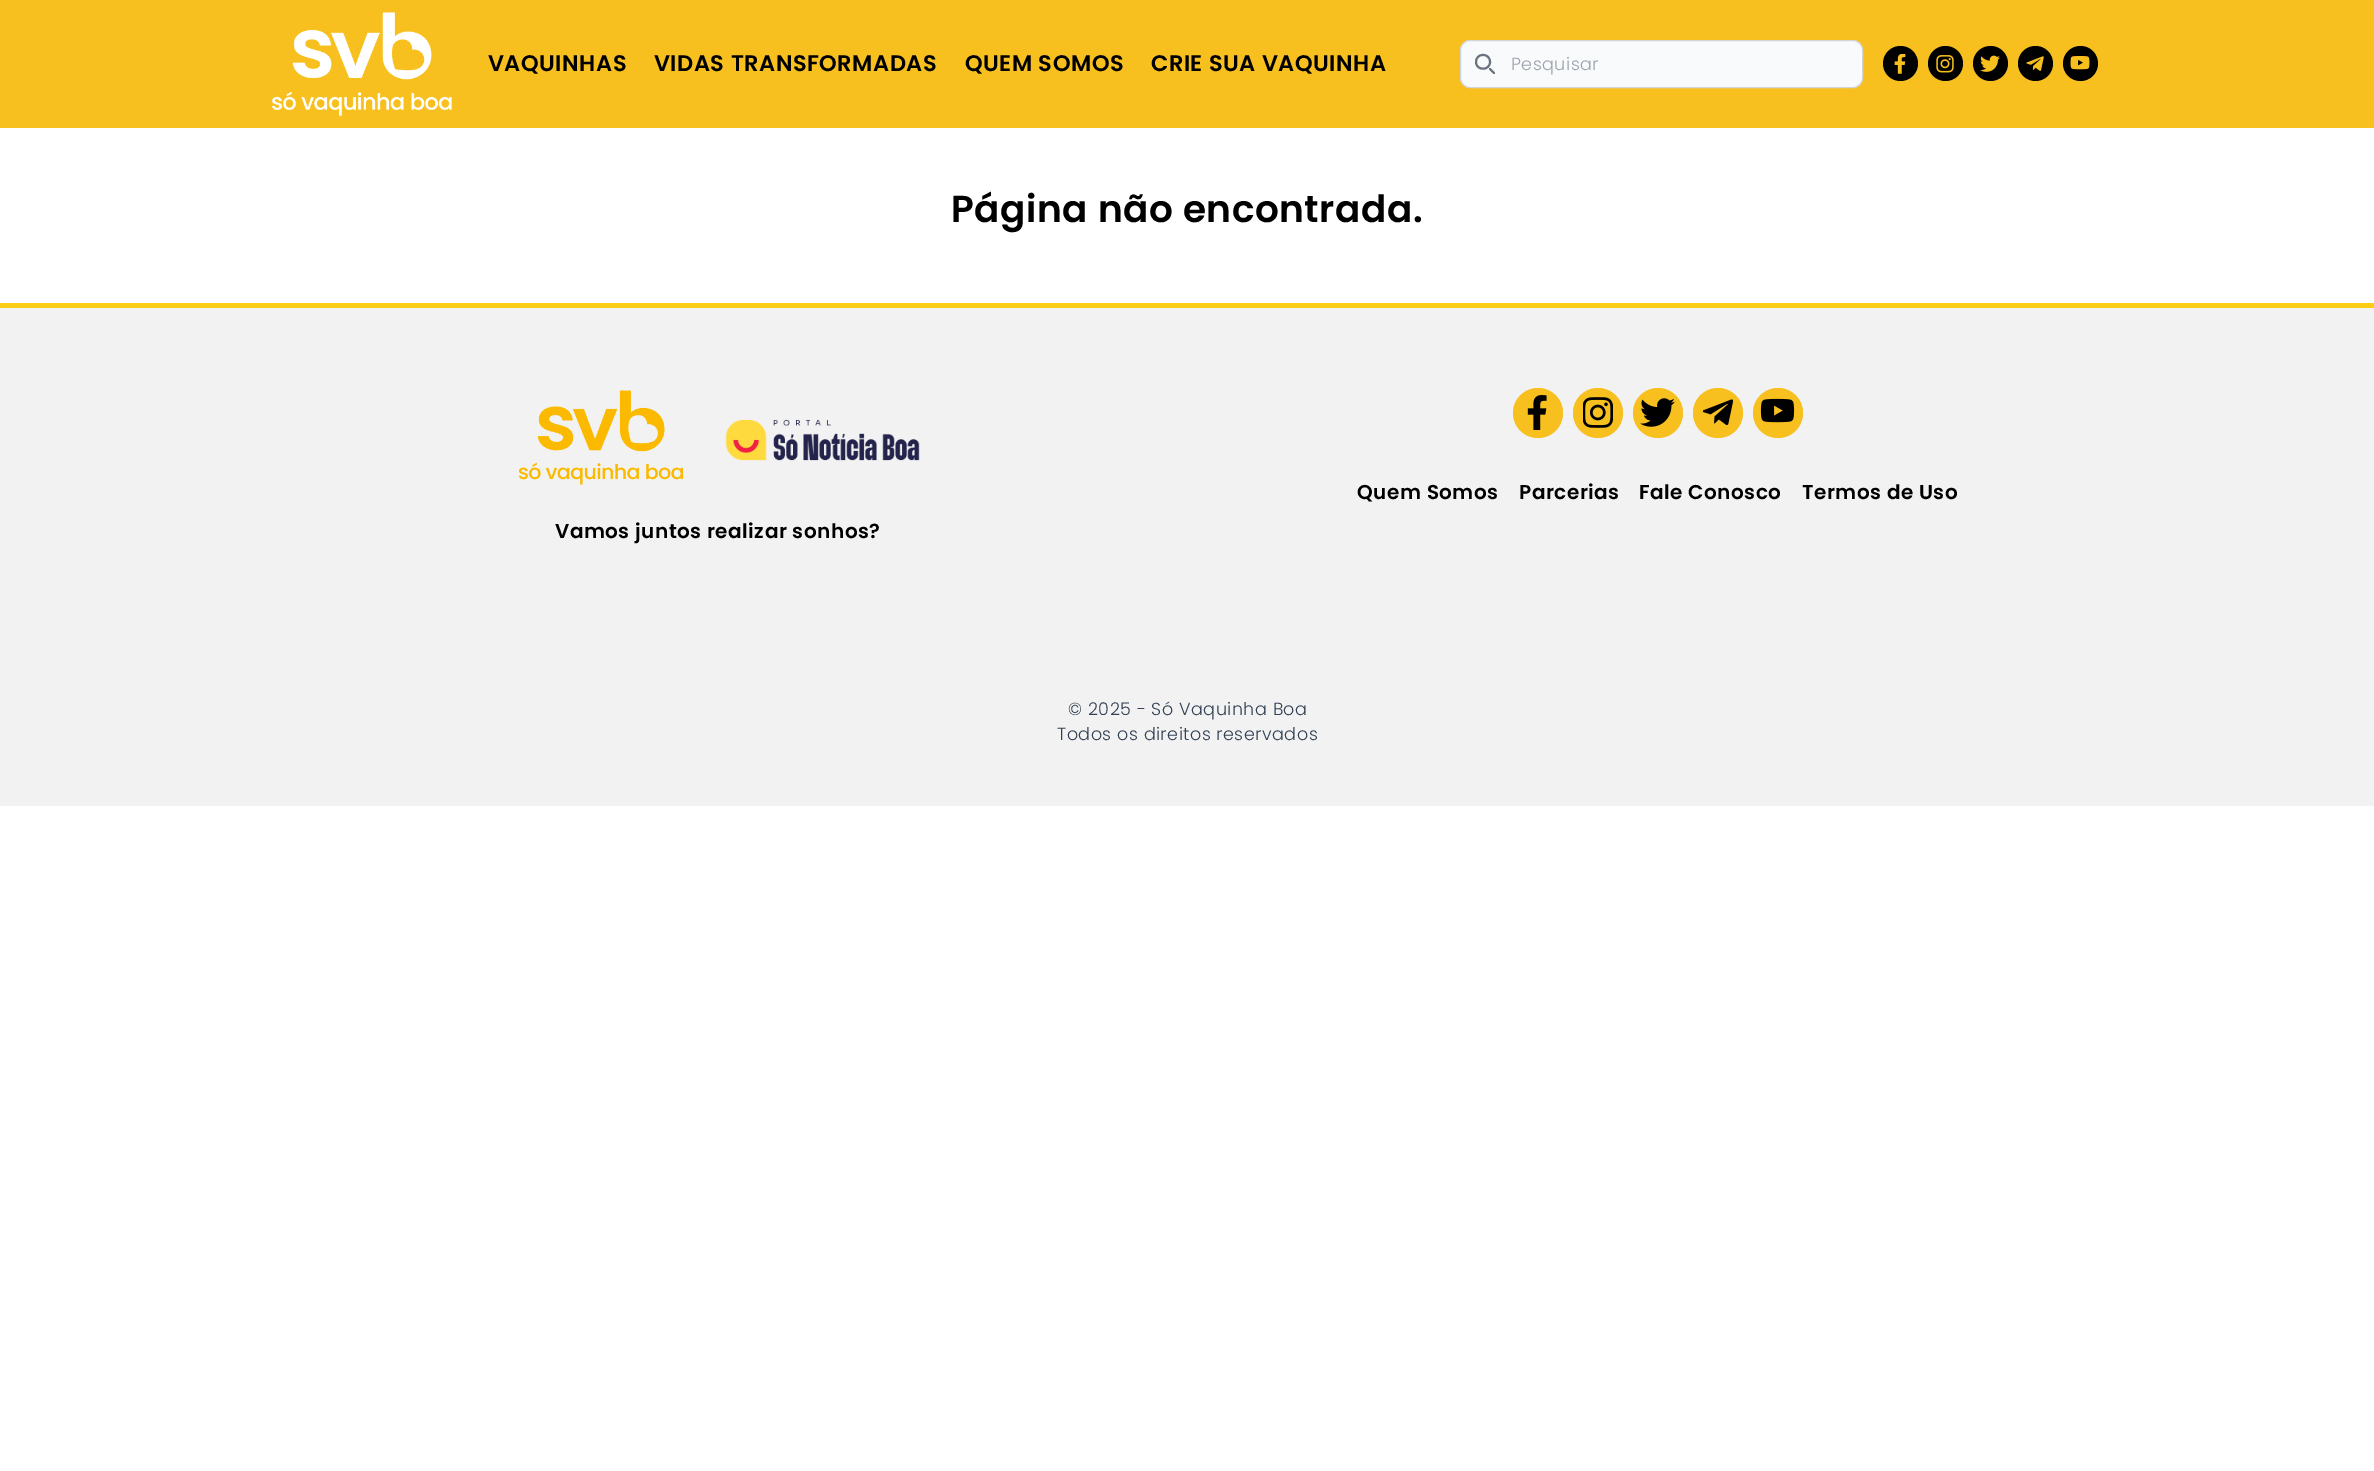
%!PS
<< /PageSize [2374 1471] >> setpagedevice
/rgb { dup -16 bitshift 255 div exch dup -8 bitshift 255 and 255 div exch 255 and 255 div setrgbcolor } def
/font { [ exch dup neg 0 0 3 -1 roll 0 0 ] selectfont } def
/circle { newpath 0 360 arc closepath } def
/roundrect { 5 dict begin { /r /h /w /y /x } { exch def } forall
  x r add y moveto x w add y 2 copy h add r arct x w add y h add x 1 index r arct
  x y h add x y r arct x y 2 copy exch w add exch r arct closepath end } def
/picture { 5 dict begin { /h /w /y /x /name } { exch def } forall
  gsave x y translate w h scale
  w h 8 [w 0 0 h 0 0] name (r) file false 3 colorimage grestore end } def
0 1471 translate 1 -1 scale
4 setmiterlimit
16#FFFFFF rgb
0 0 2374 1471 rectfill
16#F7C01E rgb
0 0 2374 128 rectfill
(pic1.raw) 272 12 180 104 picture
/Poppins-SemiBold 22.5 font
16#000000 rgb
488 71 moveto 0.5 0 (VAQUINHAS) ashow
654 71 moveto 0.5 0 (VIDAS TRANSFORMADAS) ashow
965 71 moveto 0.5 0 (QUEM SOMOS) ashow
1151 71 moveto 0.5 0 (CRIE SUA VAQUINHA) ashow
16#F9FAFB rgb
1460.5 40.5 402 47 9.5 roundrect gsave fill grestore
16#D1D5DB rgb
stroke
16#6B7280 rgb
2 setlinewidth
1 setlinecap
1 setlinejoin
1494 73 moveto 1490 69 lineto 1490 62 moveto 1490 71 1476 71 1476 62 curveto 1476 52.5 1490 52.5 1490 62 curveto closepath stroke
/Poppins-Light 17.5 font
16#9CA3AF rgb
1511 70 moveto 0.5 0 (Pesquisar) ashow
16#000000 rgb
1900.5 63.5 17.5 circle fill
(pic2.raw) 1894 54 12 20 picture
1945.5 63.5 17.5 circle fill
(pic3.raw) 1936 55 18 18 picture
1990.5 63.5 17.5 circle fill
(pic4.raw) 1980 55 20 17 picture
2035.5 63.5 17.5 circle fill
(pic5.raw) 2026 56 18 15 picture
2080.5 63.5 17.5 circle fill
(pic6.raw) 2070 56 20 14 picture
/Poppins-SemiBold 37.5 font
951 222 moveto 0.5 0 (Página não encontrada.) ashow
16#F2F2F2 rgb
0 308 2374 498 rectfill
16#FACC15 rgb
0 303 2374 5 rectfill
16#F7C01E rgb
1538 413 25 circle fill
(pic7.raw) 1527 395 20 35 picture
1598 413 25 circle fill
(pic8.raw) 1583 397 30 31 picture
1658 413 25 circle fill
(pic9.raw) 1640 398 35 29 picture
1718 413 25 circle fill
(pic10.raw) 1703 399 30 26 picture
1778 413 25 circle fill
(pic11.raw) 1760 398 35 25 picture
/Poppins-SemiBold 20 font
16#000000 rgb
1357 499 moveto 0.5 0 (Quem Somos) ashow
1519 499 moveto 0.5 0 (Parcerias) ashow
1639 499 moveto 0.5 0 (Fale Conosco) ashow
1802 499 moveto 0.5 0 (Termos de Uso) ashow
(pic12.raw) 518 390 166 95 picture
(pic13.raw) 725 419 195 42 picture
555 538 moveto 0.5 0 (Vamos juntos realizar sonhos?) ashow
/Poppins-Light 17.5 font
16#334155 rgb
1068 715 moveto 0.5 0 (© 2025 - Só Vaquinha Boa) ashow
1057 740 moveto 0.5 0 (Todos os direitos reservados) ashow
showpage
